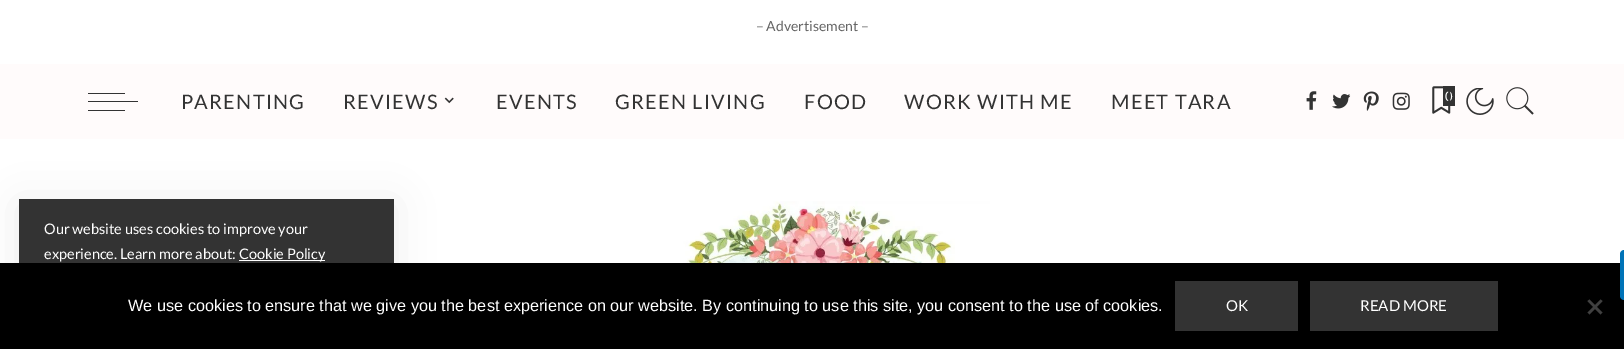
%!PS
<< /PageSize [1624 349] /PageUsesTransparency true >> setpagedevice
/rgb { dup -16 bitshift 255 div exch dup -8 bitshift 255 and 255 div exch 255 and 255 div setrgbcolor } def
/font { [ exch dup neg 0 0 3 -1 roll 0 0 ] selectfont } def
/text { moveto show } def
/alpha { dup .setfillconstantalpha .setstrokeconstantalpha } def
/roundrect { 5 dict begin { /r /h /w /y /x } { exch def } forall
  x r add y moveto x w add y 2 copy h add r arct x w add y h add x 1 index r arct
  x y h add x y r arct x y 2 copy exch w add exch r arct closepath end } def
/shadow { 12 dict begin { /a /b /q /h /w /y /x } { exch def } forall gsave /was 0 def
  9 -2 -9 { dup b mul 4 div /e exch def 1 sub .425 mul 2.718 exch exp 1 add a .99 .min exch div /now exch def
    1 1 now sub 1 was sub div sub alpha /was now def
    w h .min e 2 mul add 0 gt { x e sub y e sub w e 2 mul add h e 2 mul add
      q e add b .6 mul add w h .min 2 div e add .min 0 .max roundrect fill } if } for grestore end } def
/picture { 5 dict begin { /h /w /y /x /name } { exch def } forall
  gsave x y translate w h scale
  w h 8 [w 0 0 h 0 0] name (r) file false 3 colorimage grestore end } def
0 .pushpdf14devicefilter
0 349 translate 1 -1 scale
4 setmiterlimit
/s1 { /Lato-Regular 14 font 16#666666 rgb } def
/s2 { /Lato-Regular 13 font 16#FFFFFF rgb } def
/s3 { /Lato-Regular 14.5 font 16#FFFFFF rgb } def
/s4 { /LiberationSans-Regular 16.25 font 16#FFFFFF rgb } def
/s5 { /Lato-Regular 15 font 16#FFFFFF rgb } def
16#FFFFFF rgb
0 0 1624 349 rectfill
s1
(– Advertisement –) 756 31 text
16#FFFBFB rgb
0 64 1624 75 rectfill
16#333333 rgb
88 101 50 1 rectfill
88 93 37 1 rectfill
88 110 37 1 rectfill
/Lato-Regular 20 font
181 109 moveto 1.25 0 (PARENTING) ashow
343 109 moveto 1.25 0 (REVIEWS) ashow
(pic1.raw) 444 97 10 7 picture
496 109 moveto 1.25 0 (EVENTS) ashow
615 109 moveto 1.25 0 (GREEN LIVING) ashow
804 109 moveto 1.25 0 (FOOD) ashow
904 109 moveto 1.25 0 (WORK WITH ME) ashow
1111 109 moveto 1.25 0 (MEET TARA) ashow
(pic2.raw) 1306 91 11 19 picture
(pic3.raw) 1332 94 19 15 picture
(pic4.raw) 1363 91 16 20 picture
(pic5.raw) 1392 92 18 18 picture
1443 86 12 20 rectfill
s2
(0) 1445 101 text
(pic6.raw) 1432 86 19 28 picture
(pic7.raw) 1466 88 28 27 picture
(pic8.raw) 1506 87 28 28 picture
(pic9.raw) 647 201 343 62 picture
16#000000 rgb
19 204 375 132 0 19 0.07 shadow
16#333333 rgb
19 199 375 64 rectfill
s3
(Our website uses cookies to improve your) 44 234 text
(experience. Learn more about:) 44 259 text
239 260 86 1 rectfill
(Cookie Policy) 239 259 text
16#000000 rgb
0 263 1624 86 rectfill
16#0073B7 rgb
1624 250 moveto 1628 250 lineto 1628 300 lineto 1624 300 lineto 1622 300 1620 298 1620 296 curveto 1620 254 lineto 1620 252 1622 250 1624 250 curveto closepath fill
s4
(We use cookies to ensure that we give you the best experience on our website. By continuing to use this site, you consent to the use of cookies.) 128 311 text
16#333333 rgb
1175 281 123 50 rectfill
s5
(OK) 1226 311 text
16#333333 rgb
1310 281 188 50 rectfill
s5
(READ MORE) 1360 311 text
16#404040 rgb
1600.5 299.5 moveto 1602.5 301 lineto 1589.5 314.5 lineto 1587.5 312.5 lineto closepath fill
1587.5 301 moveto 1589.5 299.5 lineto 1602.5 312.5 lineto 1600.5 314.5 lineto closepath fill
.poppdf14devicefilter showpage
